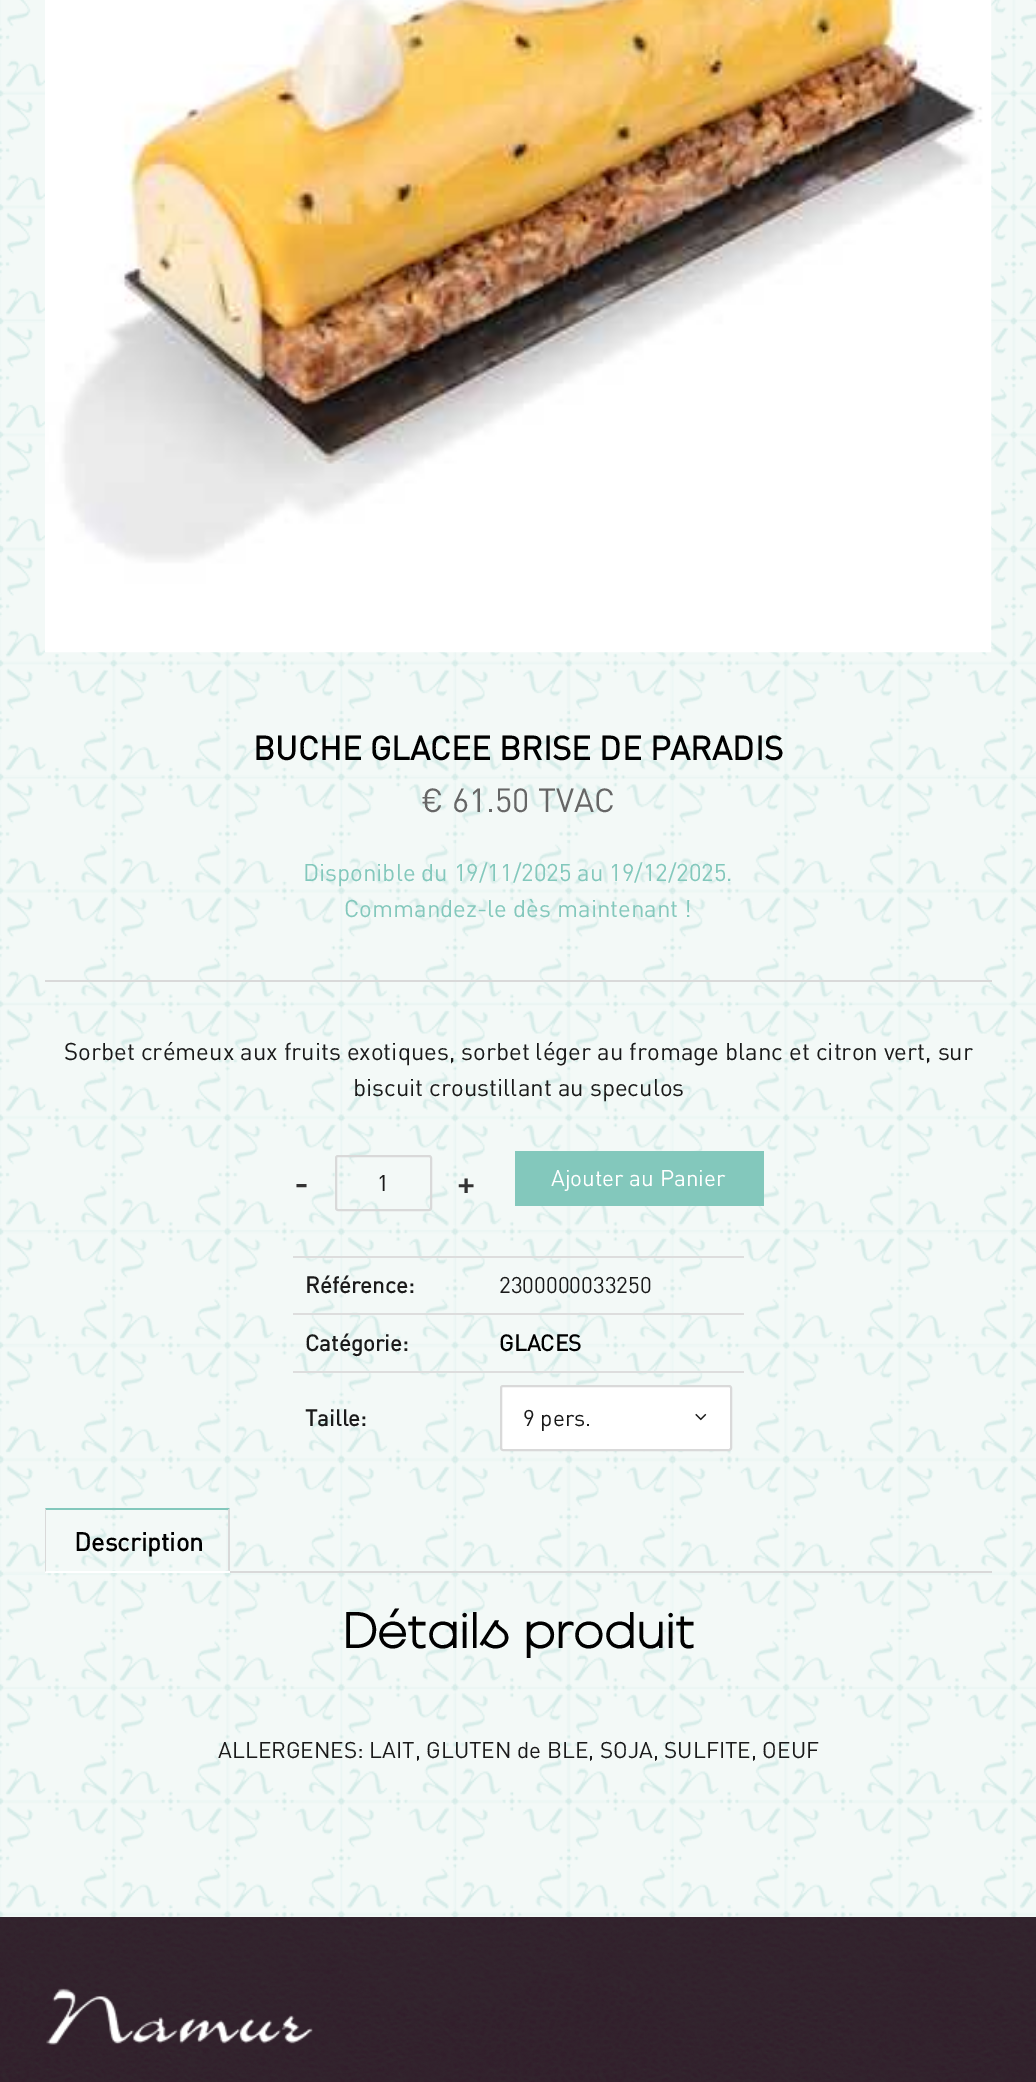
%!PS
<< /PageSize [1036 2082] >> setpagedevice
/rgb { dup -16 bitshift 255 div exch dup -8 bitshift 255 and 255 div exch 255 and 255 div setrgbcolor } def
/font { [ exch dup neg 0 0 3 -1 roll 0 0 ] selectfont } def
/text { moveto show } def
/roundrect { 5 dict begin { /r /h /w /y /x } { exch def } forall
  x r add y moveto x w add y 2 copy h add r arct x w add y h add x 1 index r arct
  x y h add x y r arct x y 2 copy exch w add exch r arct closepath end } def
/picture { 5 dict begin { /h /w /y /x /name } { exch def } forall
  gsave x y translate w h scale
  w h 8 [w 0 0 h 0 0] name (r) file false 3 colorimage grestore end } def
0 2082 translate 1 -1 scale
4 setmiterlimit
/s1 { /DIN-Bold 33 font 16#000000 rgb } def
/s2 { /DIN-Regular 33 font 16#666666 rgb } def
/s3 { /DIN-Regular 24 font 16#83C8BC rgb } def
/s4 { /DIN-Regular 24 font 16#1A1A1A rgb } def
/s5 { /DIN-Bold 33 font 16#333333 rgb } def
/s6 { /DIN-Regular 22.5 font 16#1A1A1A rgb } def
/s7 { /DIN-Regular 22.5 font 16#FFFFFF rgb } def
/s8 { /DIN-Bold 22.5 font 16#1A1A1A rgb } def
/s9 { /DIN-Bold 22.5 font 16#000000 rgb } def
/s10 { /DIN-Bold 25.5 font 16#000000 rgb } def
/s11 { /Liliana-Bold 49.5 font 16#000000 rgb } def
16#FFFFFF rgb
0 0 1036 2082 rectfill
(pic1.raw) 0 0 1036 1917 picture
(pic2.raw) 45 0 947 653 picture
s1
(BUCHE GLACEE BRISE DE PARADIS) 253 760 text
s2
(€ 61.50 TVAC) 421 812 text
s3
(Disponible du 19/11/2025 au 19/12/2025.) 303 881 text
(Commandez-le dès maintenant !) 344 917 text
16#D9D9D9 rgb
45 980 947 2 rectfill
s4
(Sorbet crémeux aux fruits exotiques, sorbet léger au fromage blanc et citron vert, sur) 64 1060 text
(biscuit croustillant au speculos) 353 1096 text
s5
(-) 294 1195 text
16#D9D9D9 rgb
2 setlinewidth
336 1156 95 54 2 roundrect stroke
s6
(1) 377 1191 text
s5
(+) 457 1195 text
16#83C8BC rgb
515 1151 249 55 rectfill
s7
(Ajouter au Panier) 551 1186 text
s8
(Référence:) 305 1293 text
16#DDDDDD rgb
293 1256 451 2 rectfill
s6
(2300000033250) 499 1293 text
s8
(Catégorie:) 305 1351 text
16#DDDDDD rgb
293 1313 451 2 rectfill
s9
(GLACES) 499 1351 text
s8
(Taille:) 305 1426 text
16#DDDDDD rgb
293 1371 451 2 rectfill
16#FFFFFF rgb
501 1386 230 64 2 roundrect gsave fill grestore
16#D9D9D9 rgb
stroke
s6
(9 pers.) 523 1426 text
(pic3.raw) 695 1413 12 8 picture
16#D9D9D9 rgb
230 1571 762 2 rectfill
16#83C8BC rgb
45 1508 moveto 230 1508 lineto 228 1510 lineto 46 1510 lineto closepath fill
16#D9D9D9 rgb
230 1508 moveto 230 1572 lineto 228 1570 lineto 228 1510 lineto closepath fill
16#FFFFFF rgb
45 1571 185 2 rectfill
16#D9D9D9 rgb
45 1572 moveto 45 1508 lineto 46 1510 lineto 46 1570 lineto closepath fill
s10
(Description) 74 1551 text
s11
(Détails produit) 342 1648 text
s6
(ALLERGENES: LAIT, GLUTEN de BLE, SOJA, SULFITE, OEUF) 218 1758 text
16#2F1A28 rgb
0 1917 1036 165 rectfill
(pic4.raw) 0 1917 1036 165 picture
(pic5.raw) 46 1988 267 57 picture
showpage
